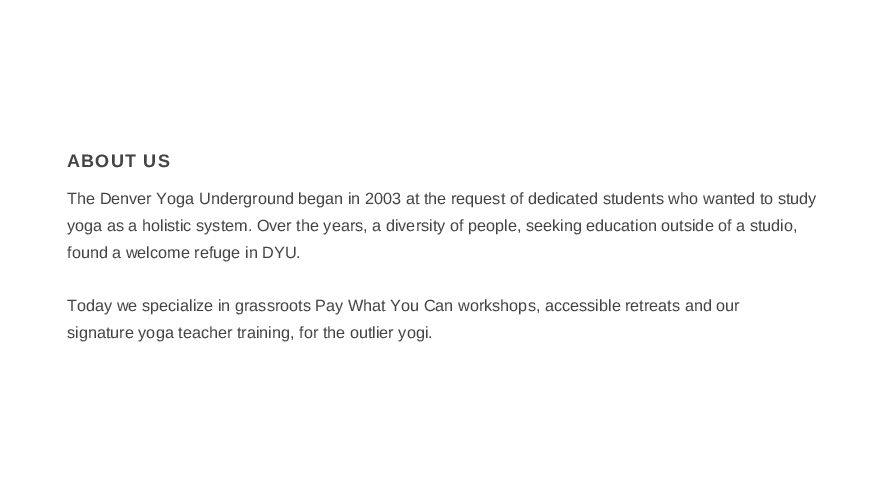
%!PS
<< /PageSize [887 491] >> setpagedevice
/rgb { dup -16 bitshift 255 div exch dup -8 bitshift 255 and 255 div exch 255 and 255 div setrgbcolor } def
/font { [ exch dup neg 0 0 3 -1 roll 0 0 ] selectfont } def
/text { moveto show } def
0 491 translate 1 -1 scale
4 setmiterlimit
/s1 { /LiberationSans-Regular 16.25 font 16#444444 rgb } def
16#FFFFFF rgb
0 0 887 491 rectfill
/LiberationSans-Bold 18 font
16#444444 rgb
67 167 moveto 1.25 0 (ABOUT US) ashow
s1
(The Denver Yoga Underground began in 2003 at the request of dedicated students who wanted to study) 67 204 text
(yoga as a holistic system. Over the years, a diversity of people, seeking education outside of a studio,) 67 231 text
(found a welcome refuge in DYU.) 67 258 text
(Today we specialize in grassroots Pay What You Can workshops, accessible retreats and our) 67 311 text
(signature yoga teacher training, for the outlier yogi.) 67 338 text
showpage
